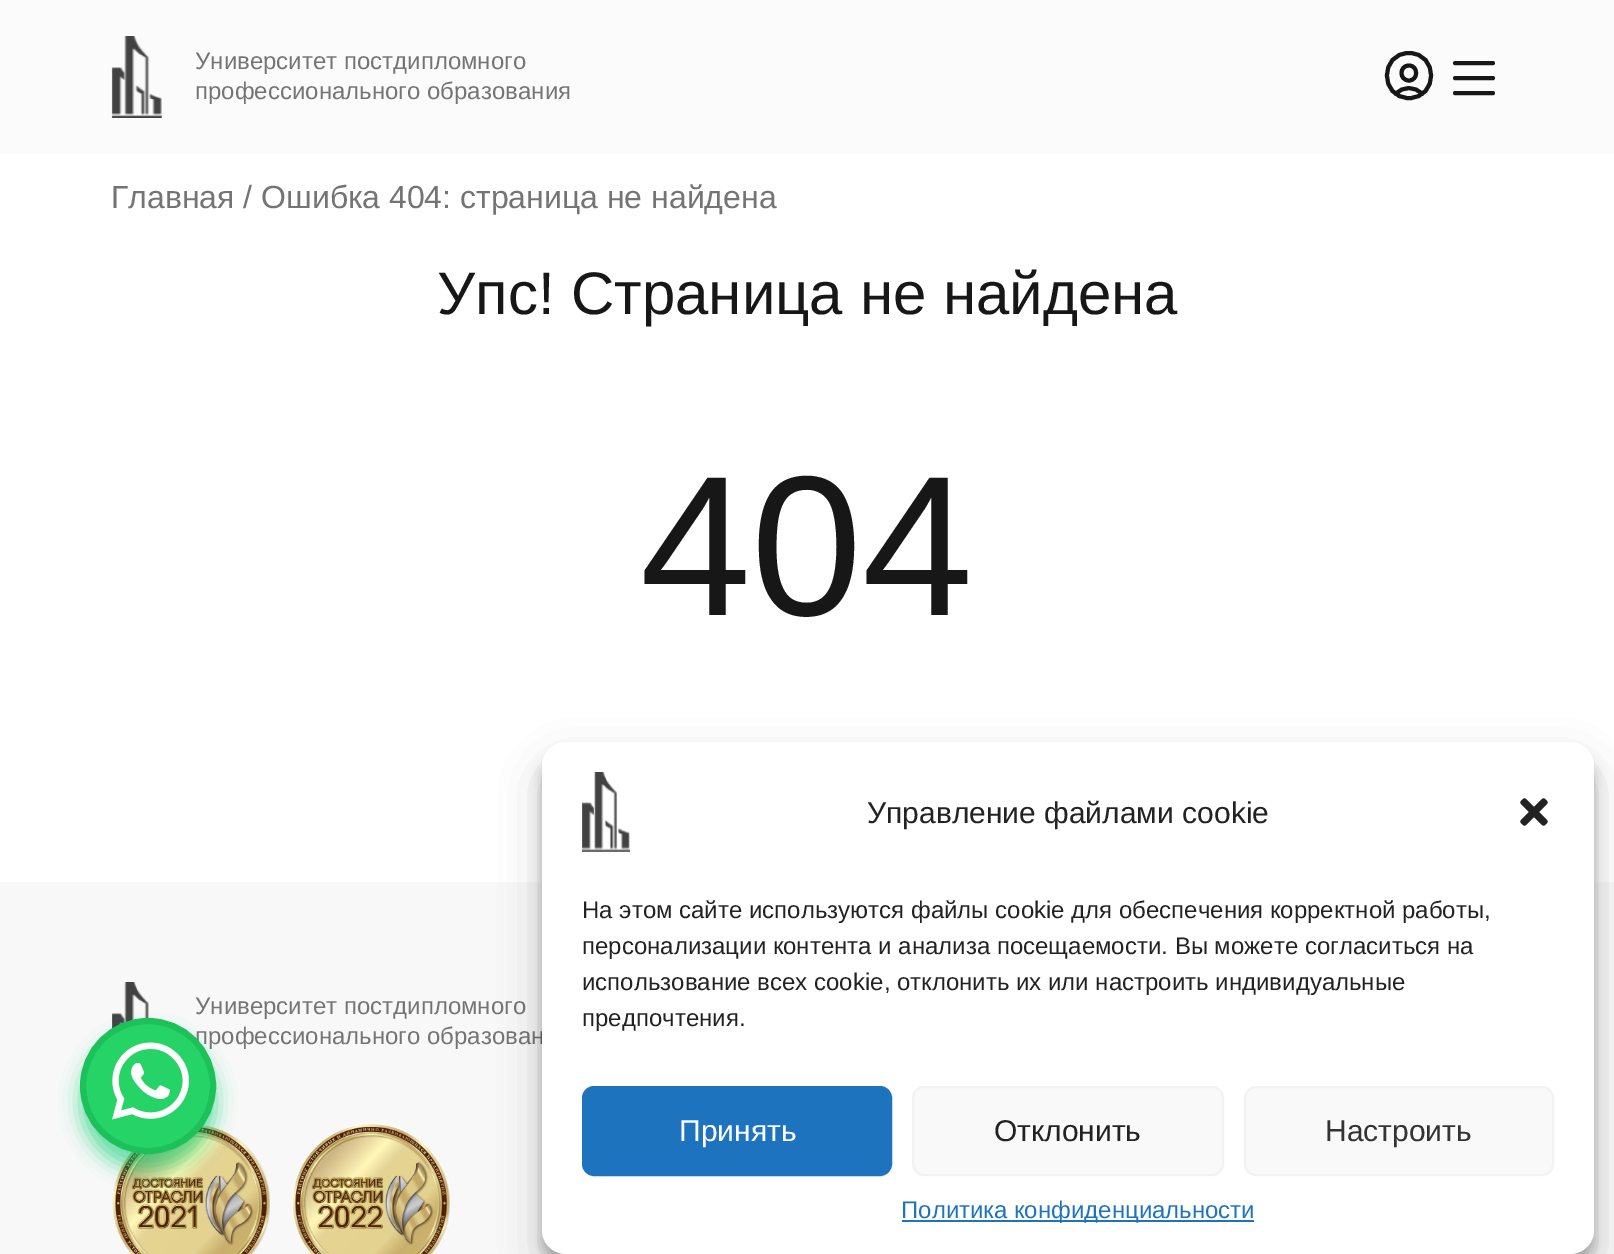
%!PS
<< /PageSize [1614 1254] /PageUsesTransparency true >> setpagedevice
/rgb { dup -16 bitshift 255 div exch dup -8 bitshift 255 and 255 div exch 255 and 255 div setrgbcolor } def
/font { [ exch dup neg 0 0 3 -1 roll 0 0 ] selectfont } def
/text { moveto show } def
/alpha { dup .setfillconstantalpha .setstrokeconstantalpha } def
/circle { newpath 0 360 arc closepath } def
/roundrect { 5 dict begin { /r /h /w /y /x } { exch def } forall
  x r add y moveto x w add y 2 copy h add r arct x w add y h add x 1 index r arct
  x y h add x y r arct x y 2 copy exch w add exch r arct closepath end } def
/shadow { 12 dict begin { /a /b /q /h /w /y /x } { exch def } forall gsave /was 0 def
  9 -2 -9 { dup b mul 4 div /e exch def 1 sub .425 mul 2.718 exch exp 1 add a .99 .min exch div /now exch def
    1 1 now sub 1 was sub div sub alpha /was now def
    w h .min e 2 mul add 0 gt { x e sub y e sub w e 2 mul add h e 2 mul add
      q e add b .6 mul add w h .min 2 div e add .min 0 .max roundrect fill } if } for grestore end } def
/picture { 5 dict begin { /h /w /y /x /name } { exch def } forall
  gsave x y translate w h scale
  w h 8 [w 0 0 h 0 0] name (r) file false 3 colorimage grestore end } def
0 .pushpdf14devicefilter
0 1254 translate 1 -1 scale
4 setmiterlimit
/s1 { /LiberationSans-Regular 24 font 16#747474 rgb } def
/s2 { /LiberationSans-Regular 32 font 16#747474 rgb } def
/s3 { /LiberationSans-Regular 60 font 16#171717 rgb } def
/s4 { /LiberationSans-Regular 200 font 16#171717 rgb } def
/s5 { /LiberationSans-Regular 30 font 16#222222 rgb } def
/s6 { /LiberationSans-Regular 24 font 16#222222 rgb } def
/s7 { /LiberationSans-Regular 30 font 16#FFFFFF rgb } def
/s8 { /LiberationSans-Regular 30 font 16#333333 rgb } def
/s9 { /LiberationSans-Regular 24 font 16#1E73BE rgb } def
16#FFFFFF rgb
0 0 1614 1254 rectfill
16#FBFBFB rgb
0 0 1614 154 rectfill
(pic1.raw) 111 36 51 82 picture
s1
(Университет постдипломного) 195 69 text
(профессионального образования) 195 99 text
16#171717 rgb
4 setlinewidth
1 setlinecap
1 setlinejoin
1422 94 moveto 1415 86 1402.5 86 1396 94 curveto 1409 98 moveto 1379.5 98 1379.5 53 1409 53 curveto 1438.5 53 1438.5 98 1409 98 curveto closepath 1409 80.5 moveto 1399 80.5 1399 65.5 1409 65.5 curveto 1418.5 65.5 1418.5 80.5 1409 80.5 curveto closepath stroke
1493 93 moveto 1455 93 lineto 1493 78 moveto 1455 78 lineto 1493 63 moveto 1455 63 lineto stroke
s2
(Главная / Ошибка 404: страница не найдена) 111 208 text
s3
(Упс! Страница не найдена) 437 314 text
s4
(404) 640 615 text
16#F8F8F8 rgb
0 882 1614 372 rectfill
(pic2.raw) 112 982 37 47 picture
s1
(Университет постдипломного) 195 1014 text
(профессионального образован) 195 1044 text
(pic3.raw) 112 1124 158 130 picture
(pic4.raw) 292 1124 158 130 picture
16#07CE70 rgb
80 1034 136 136 68 10 0.6 shadow
16#25D366 rgb
148 1086 65 circle gsave fill grestore
16#1CC15A rgb
6 setlinewidth
0 setlinecap
0 setlinejoin
stroke
(pic5.raw) 112 1042 77 78 picture
16#000000 rgb
542 754 1052 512 24 6 0.23 shadow
542 762 1052 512 24 20 0.19 shadow
16#FFFFFF rgb
542 742 1052 512 24 roundrect fill
(pic6.raw) 582 772 48 80 picture
s5
(Управление файлами cookie) 867 823 text
(pic7.raw) 1520 798 28 28 picture
s6
(На этом сайте используются файлы cookie для обеспечения корректной работы,) 582 918 text
(персонализации контента и анализа посещаемости. Вы можете согласиться на) 582 954 text
(использование всех cookie, отклонить их или настроить индивидуальные) 582 990 text
(предпочтения.) 582 1026 text
16#1E73BE rgb
583 1087 308 88 11 roundrect gsave fill grestore
2 setlinewidth
stroke
s7
(Принять) 679 1141 text
16#F9F9F9 rgb
913 1087 310 88 11 roundrect gsave fill grestore
16#F2F2F2 rgb
stroke
s5
(Отклонить) 994 1141 text
16#F9F9F9 rgb
1245 1087 308 88 11 roundrect gsave fill grestore
16#F2F2F2 rgb
stroke
s8
(Настроить) 1325 1141 text
16#1E73BE rgb
902 1220 352 2 rectfill
s9
(Политика конфиденциальности) 901 1218 text
.poppdf14devicefilter showpage
